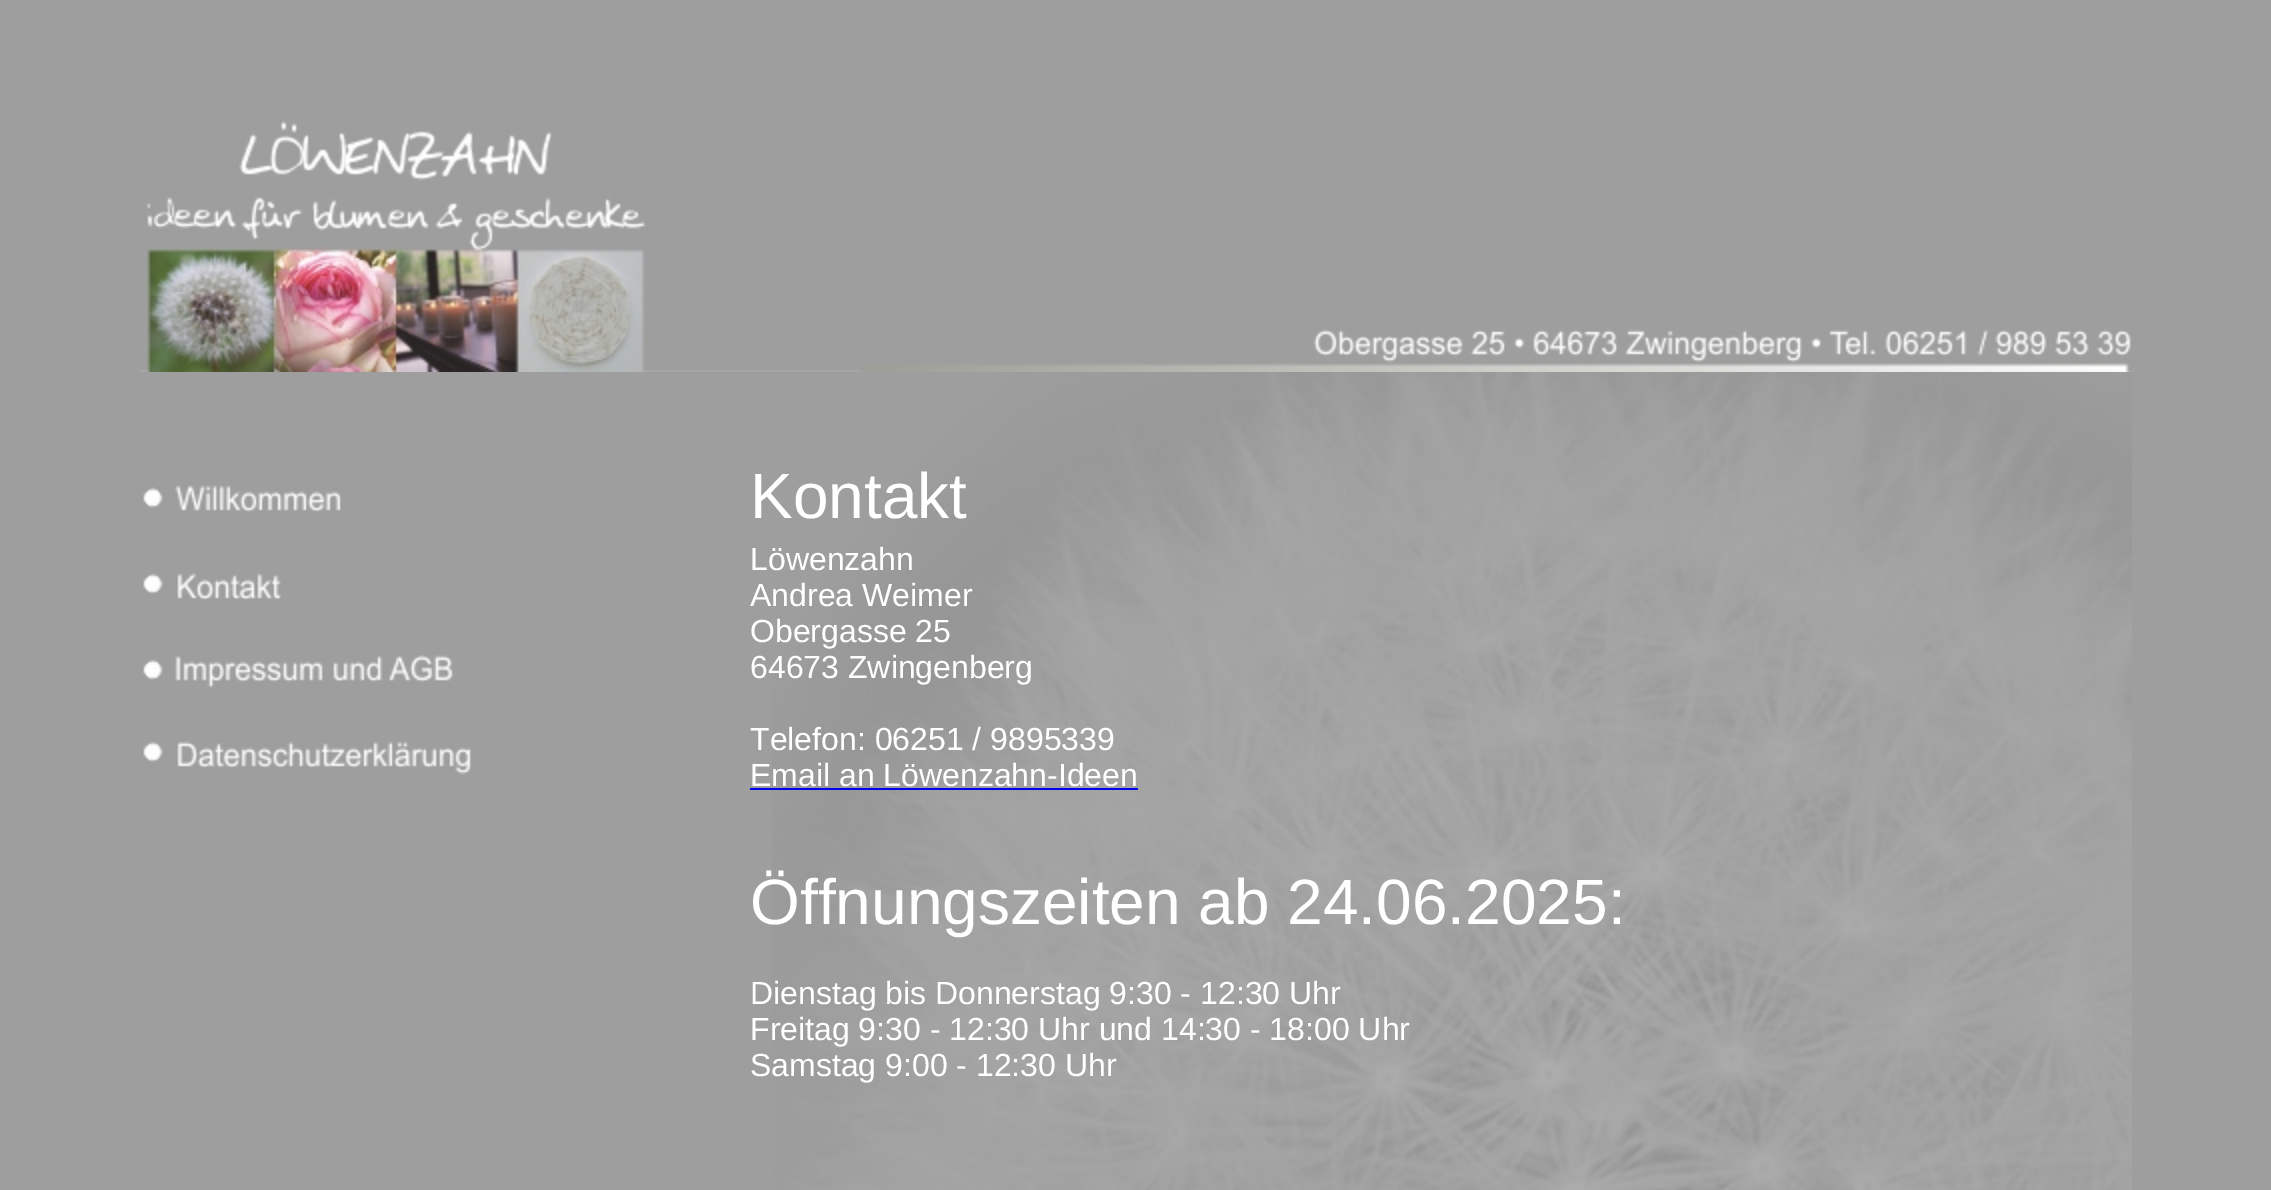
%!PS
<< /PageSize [2271 1190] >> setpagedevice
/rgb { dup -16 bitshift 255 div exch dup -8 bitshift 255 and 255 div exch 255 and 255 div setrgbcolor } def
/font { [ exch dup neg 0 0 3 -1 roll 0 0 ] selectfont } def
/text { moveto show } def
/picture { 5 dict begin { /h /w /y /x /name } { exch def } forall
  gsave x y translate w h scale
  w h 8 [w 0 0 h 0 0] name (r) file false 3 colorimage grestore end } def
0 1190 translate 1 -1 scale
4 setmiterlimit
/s1 { /LiberationSans-Regular 64 font 16#FFFFFF rgb } def
/s2 { /LiberationSans-Regular 32 font 16#FFFFFF rgb } def
16#9E9E9E rgb
0 0 2271 1190 rectfill
(pic1.raw) 772 372 1360 818 picture
(pic2.raw) 140 121 1994 251 picture
(pic3.raw) 143 485 198 27 picture
(pic4.raw) 143 573 138 27 picture
(pic5.raw) 143 655 310 33 picture
(pic6.raw) 143 741 328 34 picture
s1
(Kontakt) 750 518 text
s2
(Löwenzahn) 750 570 text
(Andrea Weimer) 750 606 text
(Obergasse 25) 750 642 text
(64673 Zwingenberg) 750 678 text
(Telefon: 06251 / 9895339) 750 750 text
(Email an Löwenzahn-Ideen) 750 786 text
16#0000EE rgb
750 788 388 2 rectfill
s1
(Öffnungszeiten ab 24.06.2025:) 750 924 text
s2
(Dienstag bis Donnerstag 9:30 - 12:30 Uhr) 750 1004 text
(Freitag 9:30 - 12:30 Uhr und 14:30 - 18:00 Uhr) 750 1040 text
(Samstag 9:00 - 12:30 Uhr) 750 1076 text
showpage
